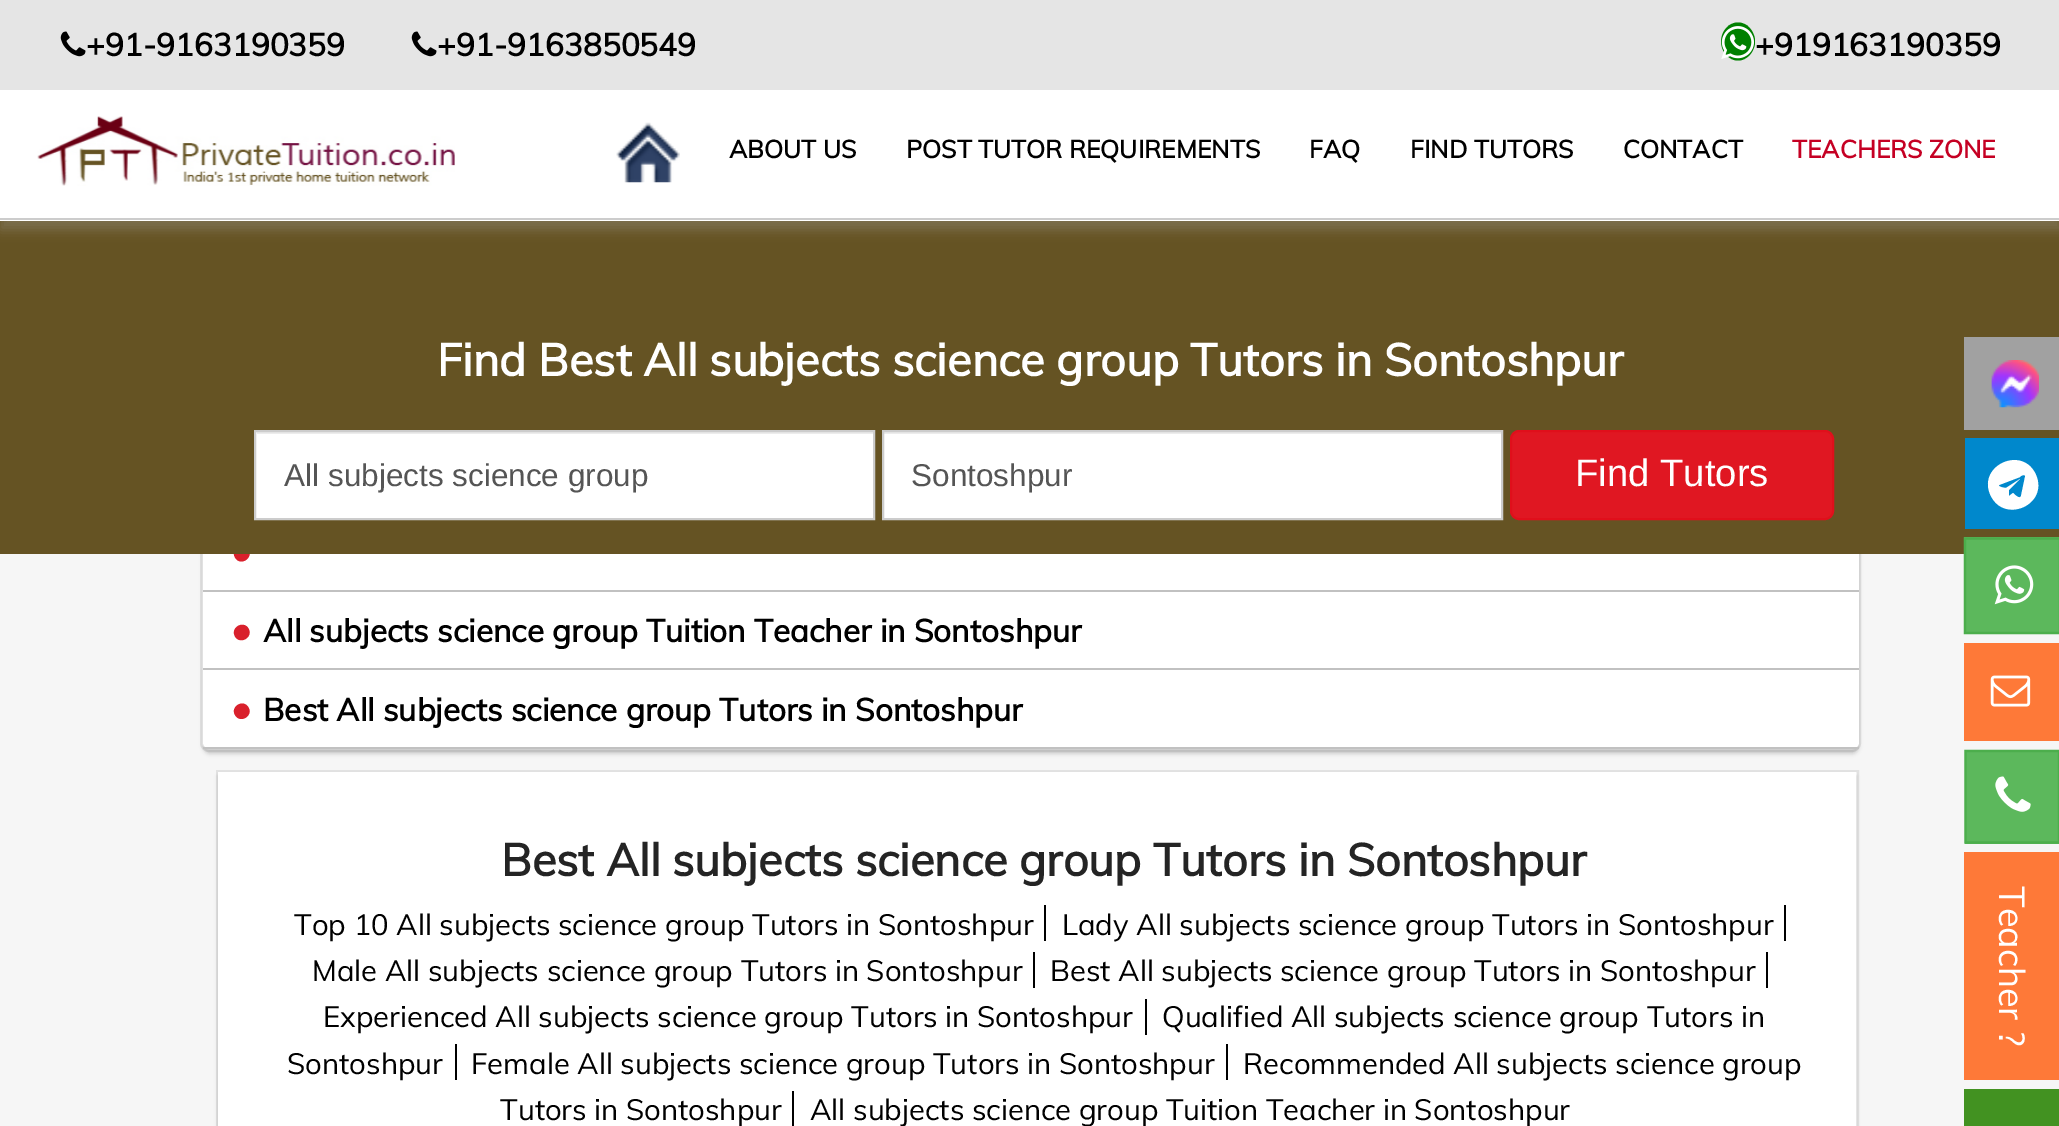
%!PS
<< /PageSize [2059 1126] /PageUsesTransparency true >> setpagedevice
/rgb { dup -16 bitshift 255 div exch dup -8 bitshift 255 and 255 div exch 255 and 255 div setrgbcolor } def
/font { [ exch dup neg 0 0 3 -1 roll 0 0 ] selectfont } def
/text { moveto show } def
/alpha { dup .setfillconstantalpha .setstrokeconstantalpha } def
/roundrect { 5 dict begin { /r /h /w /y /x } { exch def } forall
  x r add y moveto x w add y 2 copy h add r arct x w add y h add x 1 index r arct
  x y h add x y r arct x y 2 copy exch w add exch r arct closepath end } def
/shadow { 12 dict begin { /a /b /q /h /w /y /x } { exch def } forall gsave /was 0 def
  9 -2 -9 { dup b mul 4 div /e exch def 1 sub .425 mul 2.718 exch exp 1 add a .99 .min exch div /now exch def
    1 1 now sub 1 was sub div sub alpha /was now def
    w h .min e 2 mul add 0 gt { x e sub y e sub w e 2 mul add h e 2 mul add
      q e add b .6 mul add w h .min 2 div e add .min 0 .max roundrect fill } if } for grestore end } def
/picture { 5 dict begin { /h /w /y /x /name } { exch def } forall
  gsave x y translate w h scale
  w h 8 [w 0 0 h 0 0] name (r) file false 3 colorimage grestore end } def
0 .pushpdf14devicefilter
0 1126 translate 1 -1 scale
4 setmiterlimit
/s1 { /Muli-Bold 31.5 font 16#000000 rgb } def
/s2 { /Muli-Bold 24.75 font 16#000000 rgb } def
/s3 { /Muli-Bold 24.75 font 16#C50023 rgb } def
/s4 { /Muli-Bold 45 font 16#FFFFFF rgb } def
/s5 { /LiberationSans-Regular 31.5 font 16#555555 rgb } def
/s6 { /LiberationSans-Regular 38.25 font 16#FFFFFF rgb } def
/s7 { /Muli-Bold 45 font 16#242424 rgb } def
/s8 { /Muli-Regular 29.25 font 16#000000 rgb } def
16#F6F6F6 rgb
0 0 2059 1126 rectfill
16#E2E2E2 rgb
2 setlinewidth
201 217 1659 534 8 roundrect stroke
16#000000 rgb
203 223 1656 531 7 2 0.16 shadow
16#FFFFFF rgb
203 218 1656 531 7 roundrect fill
16#D9202C rgb
248.5 550 moveto 253.5 558.5 240 566.5 235 557.5 curveto 230 549 243.5 541 248.5 550 curveto closepath fill
16#655323 rgb
0 221 2059 333 rectfill
16#ADADAD rgb
0 9 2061 221 0 5.5 0.28 shadow
16#FFFFFF rgb
0 90 2059 131 rectfill
16#E5E5E5 rgb
0 0 2059 90 rectfill
(pic1.raw) 60 31 26 26 picture
s1
(+91-9163190359) 86 56 text
(pic1.raw) 411 31 26 26 picture
(+91-9163850549) 437 56 text
16#008000 rgb
1738 22.5 moveto 1747.5 22.5 1755 31 1755 41.5 curveto 1755 52 1747.5 60.5 1738 60.5 curveto 1728.5 60.5 1721 52 1721 41.5 curveto 1721 31 1728.5 22.5 1738 22.5 curveto closepath fill
(pic2.raw) 1721 26 33 33 picture
s1
(+919163190359) 1755 56 text
(pic3.raw) 37 116 418 70 picture
16#CCCCCC rgb
0 218 2059 2 rectfill
(pic4.raw) 616 122 64 61 picture
s2
(ABOUT US) 729 158 text
(POST TUTOR REQUIREMENTS) 906 158 text
(FAQ) 1309 158 text
(FIND TUTORS) 1410 158 text
(CONTACT) 1623 158 text
s3
(TEACHERS ZONE) 1792 158 text
s4
(Find Best All subjects science group Tutors in Sontoshpur) 437 376 text
256 432 617 86 rectfill
16#ECECEC rgb
257 432 616 2 rectfill
16#CCCCCC rgb
255 431 619 88 rectstroke
s5
(All subjects science group) 284 486 text
16#FFFFFF rgb
884 434 617 84 rectfill
16#ECECEC rgb
884 432 617 2 rectfill
16#CCCCCC rgb
883 431 619 88 rectstroke
s5
(Sontoshpur) 911 486 text
16#E01722 rgb
1511 431 322 88 8 roundrect gsave fill grestore
16#E00F1B rgb
stroke
s6
(Find Tutors) 1575 486 text
16#C1C1C1 rgb
203 590 1656 2 rectfill
203 668 1656 2 rectfill
16#D9202C rgb
248.5 628.5 moveto 253.5 637.5 240 645 235 636.5 curveto 230 627.5 243.5 620 248.5 628.5 curveto closepath fill
s1
(All subjects science group Tuition Teacher in Sontoshpur) 263 642 text
16#C1C1C1 rgb
203 747 1656 2 rectfill
16#D9202C rgb
248.5 707.5 moveto 253.5 716 240 724 235 715 curveto 230 706.5 243.5 698.5 248.5 707.5 curveto closepath fill
s1
(Best All subjects science group Tutors in Sontoshpur) 263 721 text
16#E2E2E2 rgb
217 771 1641 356 rectstroke
16#000000 rgb
218 776 1638 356 0 2 0.16 shadow
16#FFFFFF rgb
218 772 1638 354 rectfill
s7
(Best All subjects science group Tutors in Sontoshpur) 501 876 text
s8
(Top 10 All subjects science group Tutors in Sontoshpur) 294 935 text
1044 905 2 36 rectfill
(Lady All subjects science group Tutors in Sontoshpur) 1062 935 text
1784 905 2 36 rectfill
(Male All subjects science group Tutors in Sontoshpur) 312 981 text
1033 952 2 36 rectfill
(Best All subjects science group Tutors in Sontoshpur) 1050 981 text
1766 952 2 36 rectfill
(Experienced All subjects science group Tutors in Sontoshpur) 323 1027 text
1145 999 2 36 rectfill
(Qualified All subjects science group Tutors in) 1162 1027 text
(Sontoshpur) 287 1074 text
455 1044 2 36 rectfill
(Female All subjects science group Tutors in Sontoshpur) 471 1074 text
1226 1044 2 36 rectfill
(Recommended All subjects science group) 1243 1074 text
(Tutors in Sontoshpur) 500 1120 text
792 1091 2 35 rectfill
(All subjects science group Tuition Teacher in Sontoshpur) 810 1120 text
16#A1A1A1 rgb
1964 337 95 93 rectfill
(pic5.raw) 1991 360 48 48 picture
16#0088CC rgb
1965 438 94 91 rectfill
16#FFFFFF rgb
2021 496 moveto 2025 477 lineto 2026 473 2020 476 2020 477 curveto 1999 485 lineto 1998 487 2005 488 2006 488 curveto 2020 479 lineto 2020 479 2021 479 2020 479 curveto 2009 490 lineto 2009 496 lineto 2013 493 lineto 2014 494 2020 500 2021 496 curveto closepath 2036 475 moveto 2049 505 2003 525 1990 494 curveto 1978 465 2023 445 2036 475 curveto closepath fill
16#5CB85C rgb
1964 537 95 95 rectfill
16#4CAE4C rgb
2.2 setlinewidth
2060 538.5 moveto 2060 633 lineto 1965 633 lineto 1965 538.5 lineto closepath stroke
(pic6.raw) 1994 565 40 40 picture
16#FE7938 rgb
1964 643 95 98 rectfill
(pic7.raw) 1990 675 41 32 picture
16#5CB85C rgb
1965 752 94 92 rectfill
16#4CAE4C rgb
2059 751 moveto 2059 842.5 lineto 1965.5 842.5 lineto 1965.5 751 lineto closepath stroke
(pic8.raw) 1995 776 36 36 picture
16#FE7938 rgb
1964 852 95 228 rectfill
/Muli-Regular 36 font
16#FFFFFF rgb
gsave 1999 886 translate 90 rotate 0 0 moveto (Teacher ?) show grestore
16#429221 rgb
1964 1089 95 37 rectfill
.poppdf14devicefilter showpage
